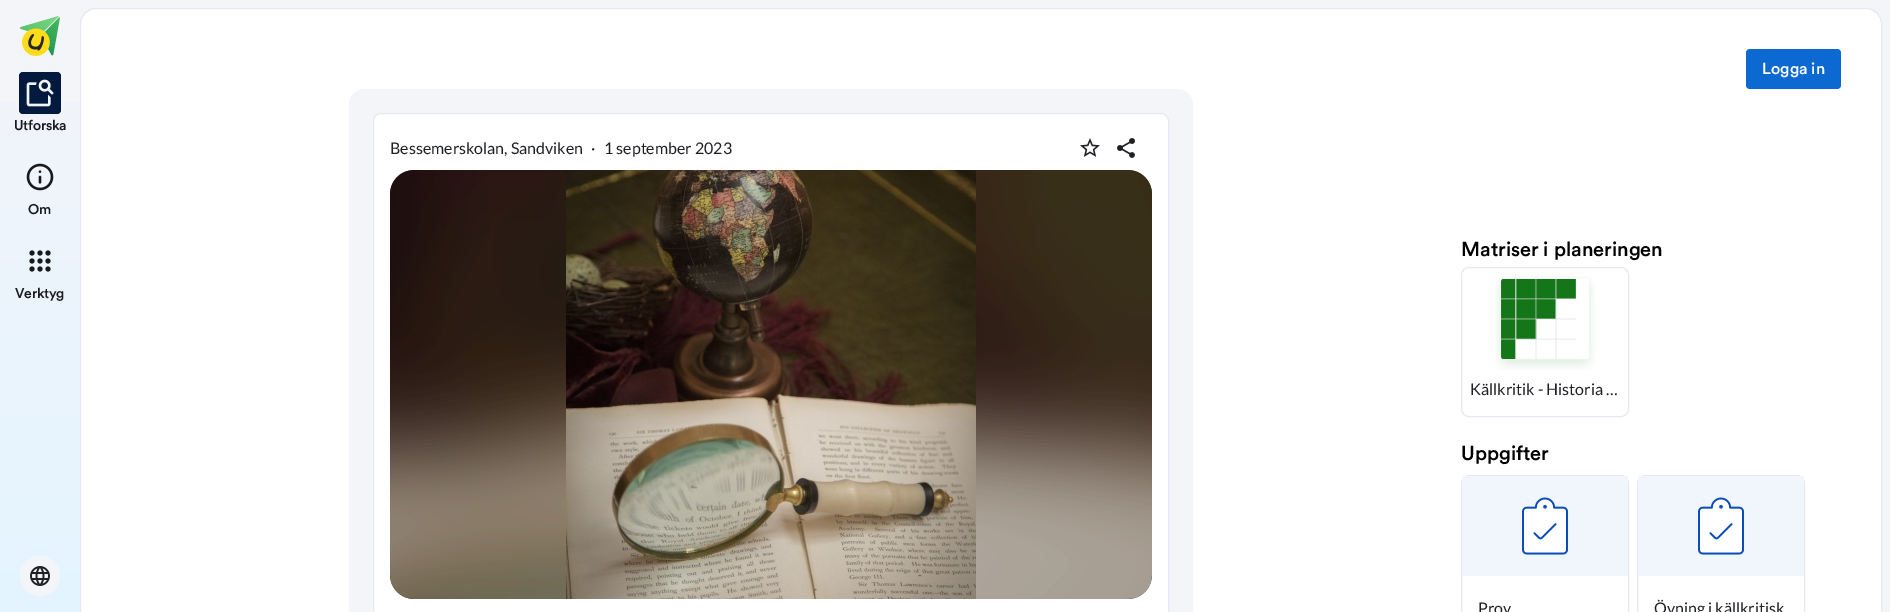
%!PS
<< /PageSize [1890 612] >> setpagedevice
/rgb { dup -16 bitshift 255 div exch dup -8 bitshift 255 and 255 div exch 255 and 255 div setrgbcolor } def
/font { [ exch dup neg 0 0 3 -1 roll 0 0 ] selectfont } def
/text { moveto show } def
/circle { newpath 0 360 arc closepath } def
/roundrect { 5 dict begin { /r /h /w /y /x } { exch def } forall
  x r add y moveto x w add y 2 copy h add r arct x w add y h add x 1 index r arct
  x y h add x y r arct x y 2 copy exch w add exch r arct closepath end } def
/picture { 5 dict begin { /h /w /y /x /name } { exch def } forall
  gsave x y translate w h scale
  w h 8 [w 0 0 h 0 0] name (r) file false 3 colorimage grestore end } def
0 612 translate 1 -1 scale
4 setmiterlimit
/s1 { /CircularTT-Medium 16 font 16#FFFFFF rgb } def
/s2 { /Lato-Regular 16 font 16#1F2124 rgb } def
/s3 { /CircularTT-Medium 20 font 16#000000 rgb } def
16#F3F5F9 rgb
0 0 1890 612 rectfill
gsave 0 102 moveto 80 102 lineto 80 612 lineto 0 612 lineto closepath clip newpath
<< /ShadingType 2 /ColorSpace /DeviceRGB /Coords [40 0 40 612] /Extend [true true] /Function << /FunctionType 2 /Domain [0 1] /C0 [0.953 0.961 0.976] /C1 [0.894 0.957 1] /N 1 >> >> shfill grestore
(pic1.raw) 20 16 40 40 picture
16#031A3E rgb
19 72 42 42 4 roundrect fill
(pic2.raw) 26 79 28 28 picture
/CircularTT-Medium 14 font
16#181A1D rgb
14 130 moveto -0.25 0 (Utforska) ashow
(pic3.raw) 26 163 28 28 picture
28 214 moveto -0.25 0 (Om) ashow
(pic4.raw) 29 250 22 22 picture
15 298 moveto -0.25 0 (Verktyg) ashow
16#F3F5F9 rgb
40 576 20 circle fill
(pic5.raw) 30 566 20 20 picture
16#FFFFFF rgb
80.5 8.5 1801 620 15.5 roundrect gsave fill grestore
16#E6E9F0 rgb
stroke
16#0C69D2 rgb
1746 49 95 40 4 roundrect fill
s1
(Logga in) 1762 74 text
16#F3F5F9 rgb
349 89 844 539 16 roundrect fill
16#FFFFFF rgb
373.5 113.5 795 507 7.5 roundrect gsave fill grestore
16#E6E9F0 rgb
stroke
s2
(Bessemerskolan, Sandviken) 390 154 text
(·) 591 154 text
(1 september 2023) 604 154 text
(pic6.raw) 1080 138 20 19 picture
(pic7.raw) 1117 138 18 20 picture
16#111111 rgb
390 170 762 429 24 roundrect fill
(pic8.raw) 390 170 762 429 picture
(pic9.raw) 566 170 410 429 picture
s3
(Matriser i planeringen) 1461 256 text
16#E6E9F0 rgb
1461.5 267.5 167 149 7.5 roundrect stroke
(pic10.raw) 1495 276 100 94 picture
s2
(Källkritik - Historia …) 1470 395 text
s3
(Uppgifter) 1461 460 text
16#E6E9F0 rgb
1461.5 475.5 167 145 7.5 roundrect stroke
16#F1F6FD rgb
1462 476 166 100 rectfill
(pic11.raw) 1522 497 46 58 picture
s2
(Prov) 1478 614 text
16#E6E9F0 rgb
1637.5 475.5 167 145 7.5 roundrect stroke
16#F1F6FD rgb
1638 476 166 100 rectfill
(pic11.raw) 1698 497 46 58 picture
s2
(Övning i källkritisk) 1654 614 text
showpage
